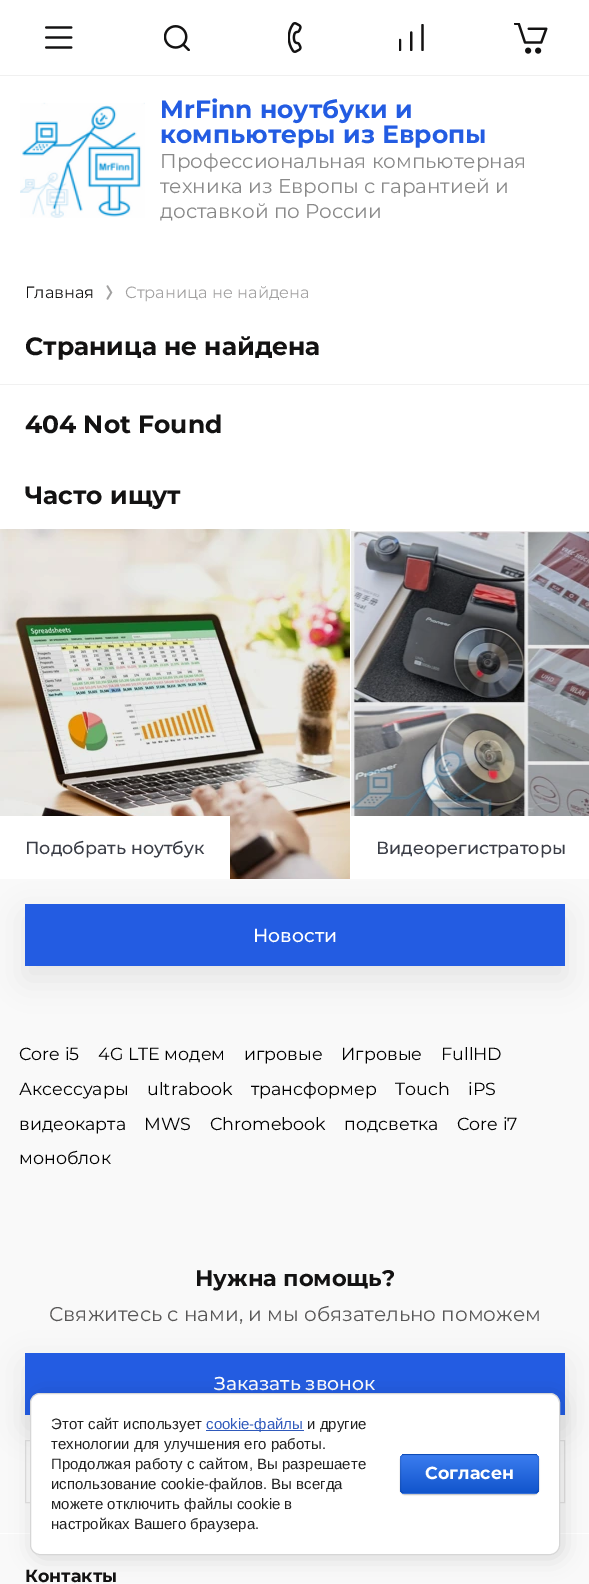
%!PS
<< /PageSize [589 1584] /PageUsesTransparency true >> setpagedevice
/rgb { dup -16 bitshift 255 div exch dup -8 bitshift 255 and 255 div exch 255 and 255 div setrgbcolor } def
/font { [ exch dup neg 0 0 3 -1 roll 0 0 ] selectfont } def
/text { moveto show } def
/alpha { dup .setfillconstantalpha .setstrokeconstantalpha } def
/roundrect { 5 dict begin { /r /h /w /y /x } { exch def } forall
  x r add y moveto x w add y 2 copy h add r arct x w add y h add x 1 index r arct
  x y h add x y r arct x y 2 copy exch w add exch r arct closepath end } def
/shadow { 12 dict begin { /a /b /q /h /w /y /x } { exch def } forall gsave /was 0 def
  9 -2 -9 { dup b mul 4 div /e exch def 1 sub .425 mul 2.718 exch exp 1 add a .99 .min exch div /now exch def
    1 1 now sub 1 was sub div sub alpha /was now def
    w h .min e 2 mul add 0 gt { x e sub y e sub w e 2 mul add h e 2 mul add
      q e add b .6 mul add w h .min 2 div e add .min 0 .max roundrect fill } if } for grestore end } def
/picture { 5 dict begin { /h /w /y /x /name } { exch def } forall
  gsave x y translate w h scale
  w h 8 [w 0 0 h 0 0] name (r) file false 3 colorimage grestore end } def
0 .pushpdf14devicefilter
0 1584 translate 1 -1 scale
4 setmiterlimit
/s1 { /Montserrat-Bold 25 font 16#235CE2 rgb } def
/s2 { /Montserrat-Regular 20 font 16#898989 rgb } def
/s3 { /Montserrat-Regular 16.25 font 16#131212 rgb } def
/s4 { /Montserrat-Regular 16.25 font 16#A1A0A0 rgb } def
/s5 { /Montserrat-Bold 25 font 16#131212 rgb } def
/s6 { /Montserrat-Medium 17.5 font 16#3A3D46 rgb } def
/s7 { /Montserrat-Medium 18.75 font 16#FFFFFF rgb } def
/s8 { /Montserrat-Regular 17.5 font 16#000000 rgb } def
/s9 { /Montserrat-Bold 22.5 font 16#131212 rgb } def
/s10 { /Montserrat-Regular 20 font 16#585757 rgb } def
/s11 { /Montserrat-Bold 17.5 font 16#131212 rgb } def
/s12 { /LiberationSans-Regular 15 font 16#212121 rgb } def
/s13 { /LiberationSans-Regular 15 font 16#2F59BB rgb } def
/s14 { /Montserrat-Bold 17.5 font 16#FFFFFF rgb } def
16#FFFFFF rgb
0 0 589 1584 rectfill
16#F0F0F0 rgb
0 75 589 1 rectfill
(pic1.raw) 45 26 28 23 picture
(pic2.raw) 164 25 26 26 picture
(pic3.raw) 288 22 14 31 picture
(pic4.raw) 399 24 25 27 picture
(pic5.raw) 514 23 34 31 picture
(pic6.raw) 20 102 125 116 picture
s1
(MrFinn ноутбуки и) 160 118 text
(компьютеры из Европы) 160 143 text
s2
(Профессиональная компьютерная) 160 168 text
(техника из Европы с гарантией и) 160 193 text
(доставкой по России) 160 218 text
16#F1F1F1 rgb
0 384 589 1 rectfill
s3
(Главная) 25 298 text
(pic7.raw) 106 285 7 15 picture
s4
(Страница не найдена) 125 298 text
s5
(Страница не найдена) 25 355 text
(404 Not Found) 25 433 text
(Часто ищут) 25 504 text
(pic8.raw) 0 529 350 350 picture
16#FFFFFF rgb
0 816 230 63 rectfill
s6
(Подобрать ноутбук) 25 854 text
(pic9.raw) 351 531 238 285 picture
(Видеорегистраторы) 376 854 text
16#F9F9F9 rgb
0 879 589 654 rectfill
16#000000 rgb
25 916 540 63 0 15.5 0.08 shadow
16#235CE2 rgb
25 904 540 62 rectfill
s7
(Новости) 253 942 text
s8
(Core i5) 19 1060 text
(4G LTE модем) 98 1060 text
(игровые) 244 1060 text
(Игровые) 341 1060 text
(FullHD) 441 1060 text
(Аксессуары) 19 1095 text
(ultrabook) 147 1095 text
(трансформер) 251 1095 text
(Touch) 395 1095 text
(iPS) 468 1095 text
(видеокарта) 19 1130 text
(MWS) 144 1130 text
(Chromebook) 210 1130 text
(подсветка) 344 1130 text
(Core i7) 457 1130 text
(моноблок) 19 1164 text
s9
(Нужна помощь?) 195 1286 text
s10
(Свяжитесь с нами, и мы обязательно поможем) 49 1321 text
16#000000 rgb
25 1365 540 63 0 15.5 0.08 shadow
16#235CE2 rgb
25 1353 540 62 rectfill
s7
(Заказать звонок) 214 1390 text
0.1 alpha
16#131212 rgb
25.5 1440.5 539 62 rectstroke
1 alpha
16#F9F9F9 rgb
0 1534 589 50 rectfill
s11
(Контакты) 25 1582 text
16#000000 rgb
33 1395 530 163 10 11 0.14 shadow
16#FFFFFF rgb
30.5 1393.5 529 161 9.5 roundrect gsave fill grestore
16#D6D6D6 rgb
stroke
s12
(Этот сайт использует) 51 1429 text
16#2F59BB rgb
206 1430 98 1 rectfill
(cookie-файлы) 206 1429 text
s12
(и другие) 307 1429 text
(технологии для улучшения его работы.) 51 1449 text
(Продолжая работу с сайтом, Вы разрешаете) 51 1469 text
(использование cookie-файлов. Вы всегда) 51 1489 text
(можете отключить файлы cookie в) 51 1509 text
(настройках Вашего браузера.) 51 1529 text
16#000000 rgb
400 1455 139 40 5 0.5 0.2 shadow
gsave
400 1454 139 40 5 roundrect clip newpath
gsave 400 1454 moveto 539 1454 lineto 539 1455 lineto 400 1455 lineto closepath clip newpath
<< /ShadingType 2 /ColorSpace /DeviceRGB /Coords [469 1418 469 1455] /Extend [true true] /Function << /FunctionType 2 /Domain [0 1] /C0 [0.231 0.486 0.937] /C1 [0.067 0.333 0.8] /N 1 >> >> shfill grestore
gsave 400 1455 moveto 539 1455 lineto 539 1493 lineto 400 1493 lineto closepath clip newpath
<< /ShadingType 2 /ColorSpace /DeviceRGB /Coords [469 1455 469 1493] /Extend [true true] /Function << /FunctionType 2 /Domain [0 1] /C0 [0.231 0.486 0.937] /C1 [0.067 0.333 0.8] /N 1 >> >> shfill grestore
gsave 400 1493 moveto 539 1493 lineto 539 1494 lineto 400 1494 lineto closepath clip newpath
<< /ShadingType 2 /ColorSpace /DeviceRGB /Coords [469 1493 469 1530] /Extend [true true] /Function << /FunctionType 2 /Domain [0 1] /C0 [0.231 0.486 0.937] /C1 [0.067 0.333 0.8] /N 1 >> >> shfill grestore
grestore
0.1 alpha
400.5 1454.5 138 39 4.5 roundrect stroke
1 alpha
s14
(Согласен) 425 1479 text
.poppdf14devicefilter showpage
